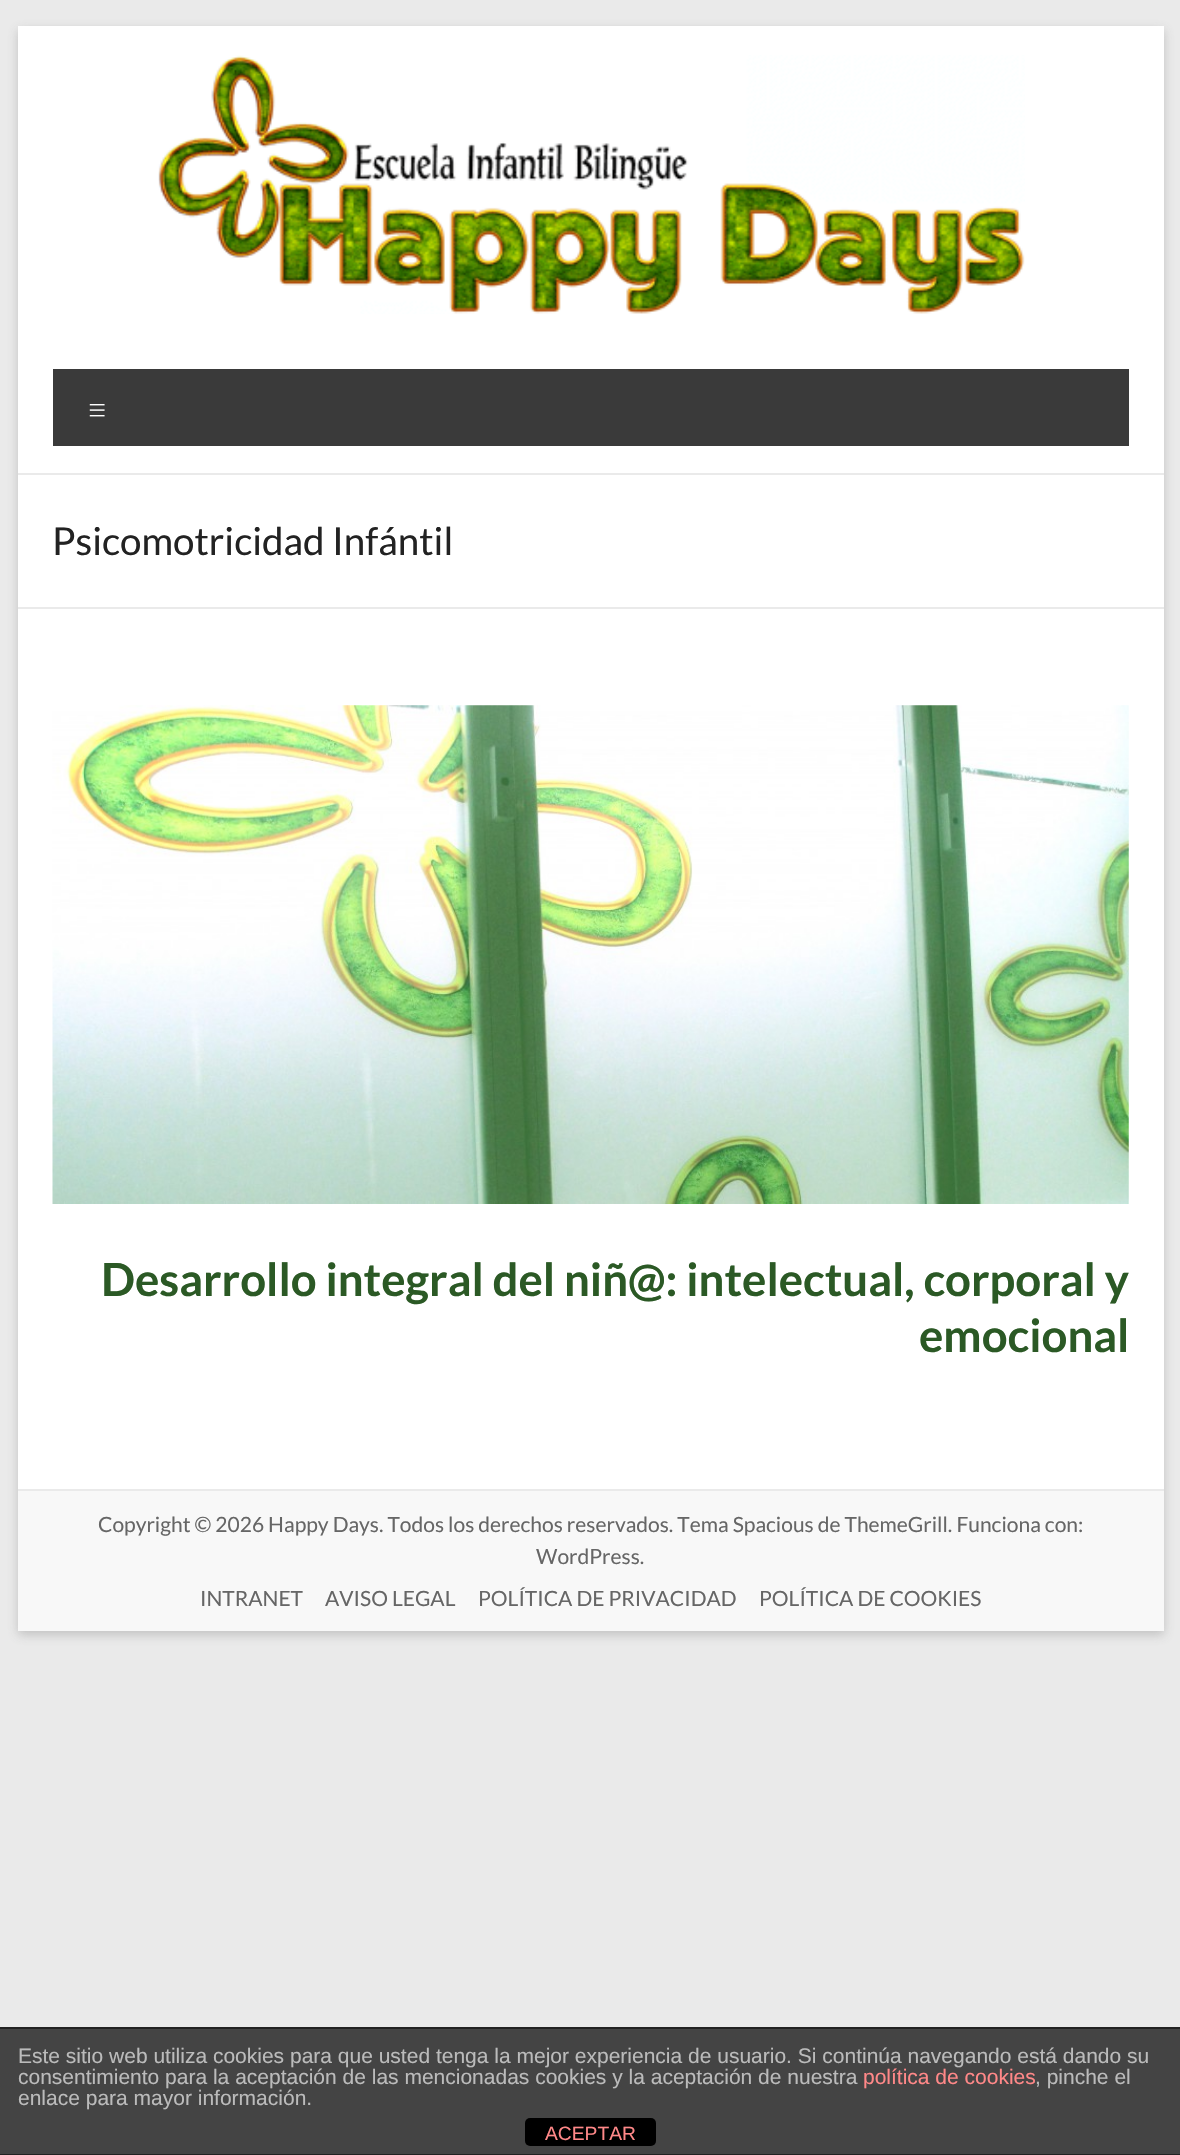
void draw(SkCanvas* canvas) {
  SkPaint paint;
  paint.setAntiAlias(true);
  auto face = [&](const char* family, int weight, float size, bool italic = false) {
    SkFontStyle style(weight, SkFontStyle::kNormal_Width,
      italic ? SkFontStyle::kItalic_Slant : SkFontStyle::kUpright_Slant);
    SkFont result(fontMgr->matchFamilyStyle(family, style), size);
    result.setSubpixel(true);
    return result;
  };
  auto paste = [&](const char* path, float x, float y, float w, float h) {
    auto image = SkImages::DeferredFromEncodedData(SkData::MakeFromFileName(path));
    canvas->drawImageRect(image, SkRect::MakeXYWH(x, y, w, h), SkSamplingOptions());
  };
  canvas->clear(0xffeaeaea);
  paint.setColor(0x4d646464);
  paint.setMaskFilter(SkMaskFilter::MakeBlur(kNormal_SkBlurStyle, 5));
  canvas->drawRect(SkRect::MakeXYWH(18, 30, 1146, 1605), paint);
  paint.setMaskFilter(nullptr);
  paint.setColor(0xffffffff);
  canvas->drawRect(SkRect::MakeXYWH(18, 26, 1146, 1463), paint);
  paint.setColor(0xffeaeaea);
  canvas->drawRect(SkRect::MakeXYWH(18, 473, 1146, 2), paint);
  paste("img/1.png", 158, 55, 867, 259);
  paint.setColor(0xff3a3a3a);
  canvas->drawRect(SkRect::MakeXYWH(53, 369, 1076, 77), paint);
  paint.setColor(0xffeaeaea);
  canvas->drawRect(SkRect::MakeXYWH(18, 607, 1146, 2), paint);
  paste("img/2.png", 52, 705, 1077, 499);
  {
    const struct { float x, y, w, h; SkColor color; } items[] = {
      {18, 1491, 1146, 140, 0xfff8f8f8},
      {18, 1489, 1146, 2, 0xffeaeaea},
      {0, 2029, 1180, 125, 0xff444444},
      {0, 2027, 1180, 2, 0xff222222},
      {0, 2154, 1180, 1, 0xff222222},
    };
    for (auto [x, y, w, h, color] : items) {
      paint.setColor(color);
      canvas->drawRect(SkRect::MakeXYWH(x, y, w, h), paint);
    }
  }
  paint.setColor(0xff000000);
  canvas->drawRoundRect(SkRect::MakeXYWH(525, 2118, 131, 28), 5, 5, paint);
  auto f0 = face("Lato", 300, 35);
  paint.setColor(0xffffffff);
  canvas->drawString("≡", 87, 422, f0, paint);
  auto f1 = face("Lato", 400, 38.5f);
  paint.setColor(0xff222222);
  canvas->drawString("Psicomotricidad Infántil", 52, 555, f1, paint);
  auto f2 = face("Lato", 700, 45.5f);
  paint.setColor(0xff2b5925);
  canvas->drawString("Desarrollo integral del niñ@: intelectual, corporal y", 101, 1296, f2, paint);
  canvas->drawString("emocional", 919, 1352, f2, paint);
  auto f3 = face("Lato", 400, 21);
  paint.setColor(0xff666666);
  {
    const struct { const char* s; float x, y; } items[] = {
      {"Copyright © 2026 Happy Days. Todos los derechos reservados. Tema Spacious de ThemeGrill. Funciona con:", 98, 1532},
      {"WordPress.", 536, 1564},
      {"INTRANET", 200, 1606},
      {"AVISO LEGAL", 325, 1606},
      {"POLÍTICA DE PRIVACIDAD", 478, 1606},
      {"POLÍTICA DE COOKIES", 759, 1606},
    };
    for (auto [s, x, y] : items) {
      canvas->drawString(s, x, y, f3, paint);
    }
  }
  auto f4 = face("Liberation Sans", 400, 21);
  paint.setColor(0xffbbbbbb);
  canvas->drawString("Este sitio web utiliza cookies para que usted tenga la mejor experiencia de usuario. Si continúa navegando está dando su", 18, 2063, f4, paint);
  canvas->drawString("consentimiento para la aceptación de las mencionadas cookies y la aceptación de nuestra", 18, 2084, f4, paint);
  paint.setColor(0xffff8888);
  canvas->drawString("política de cookies", 863, 2084, f4, paint);
  paint.setColor(0xffbbbbbb);
  canvas->drawString(", pinche el", 1035, 2084, f4, paint);
  canvas->drawString("enlace para mayor información.", 18, 2105, f4, paint);
  auto f5 = face("Liberation Sans", 400, 19.25f);
  paint.setColor(0xffff8888);
  canvas->drawString("ACEPTAR", 545, 2140, f5, paint);
}
